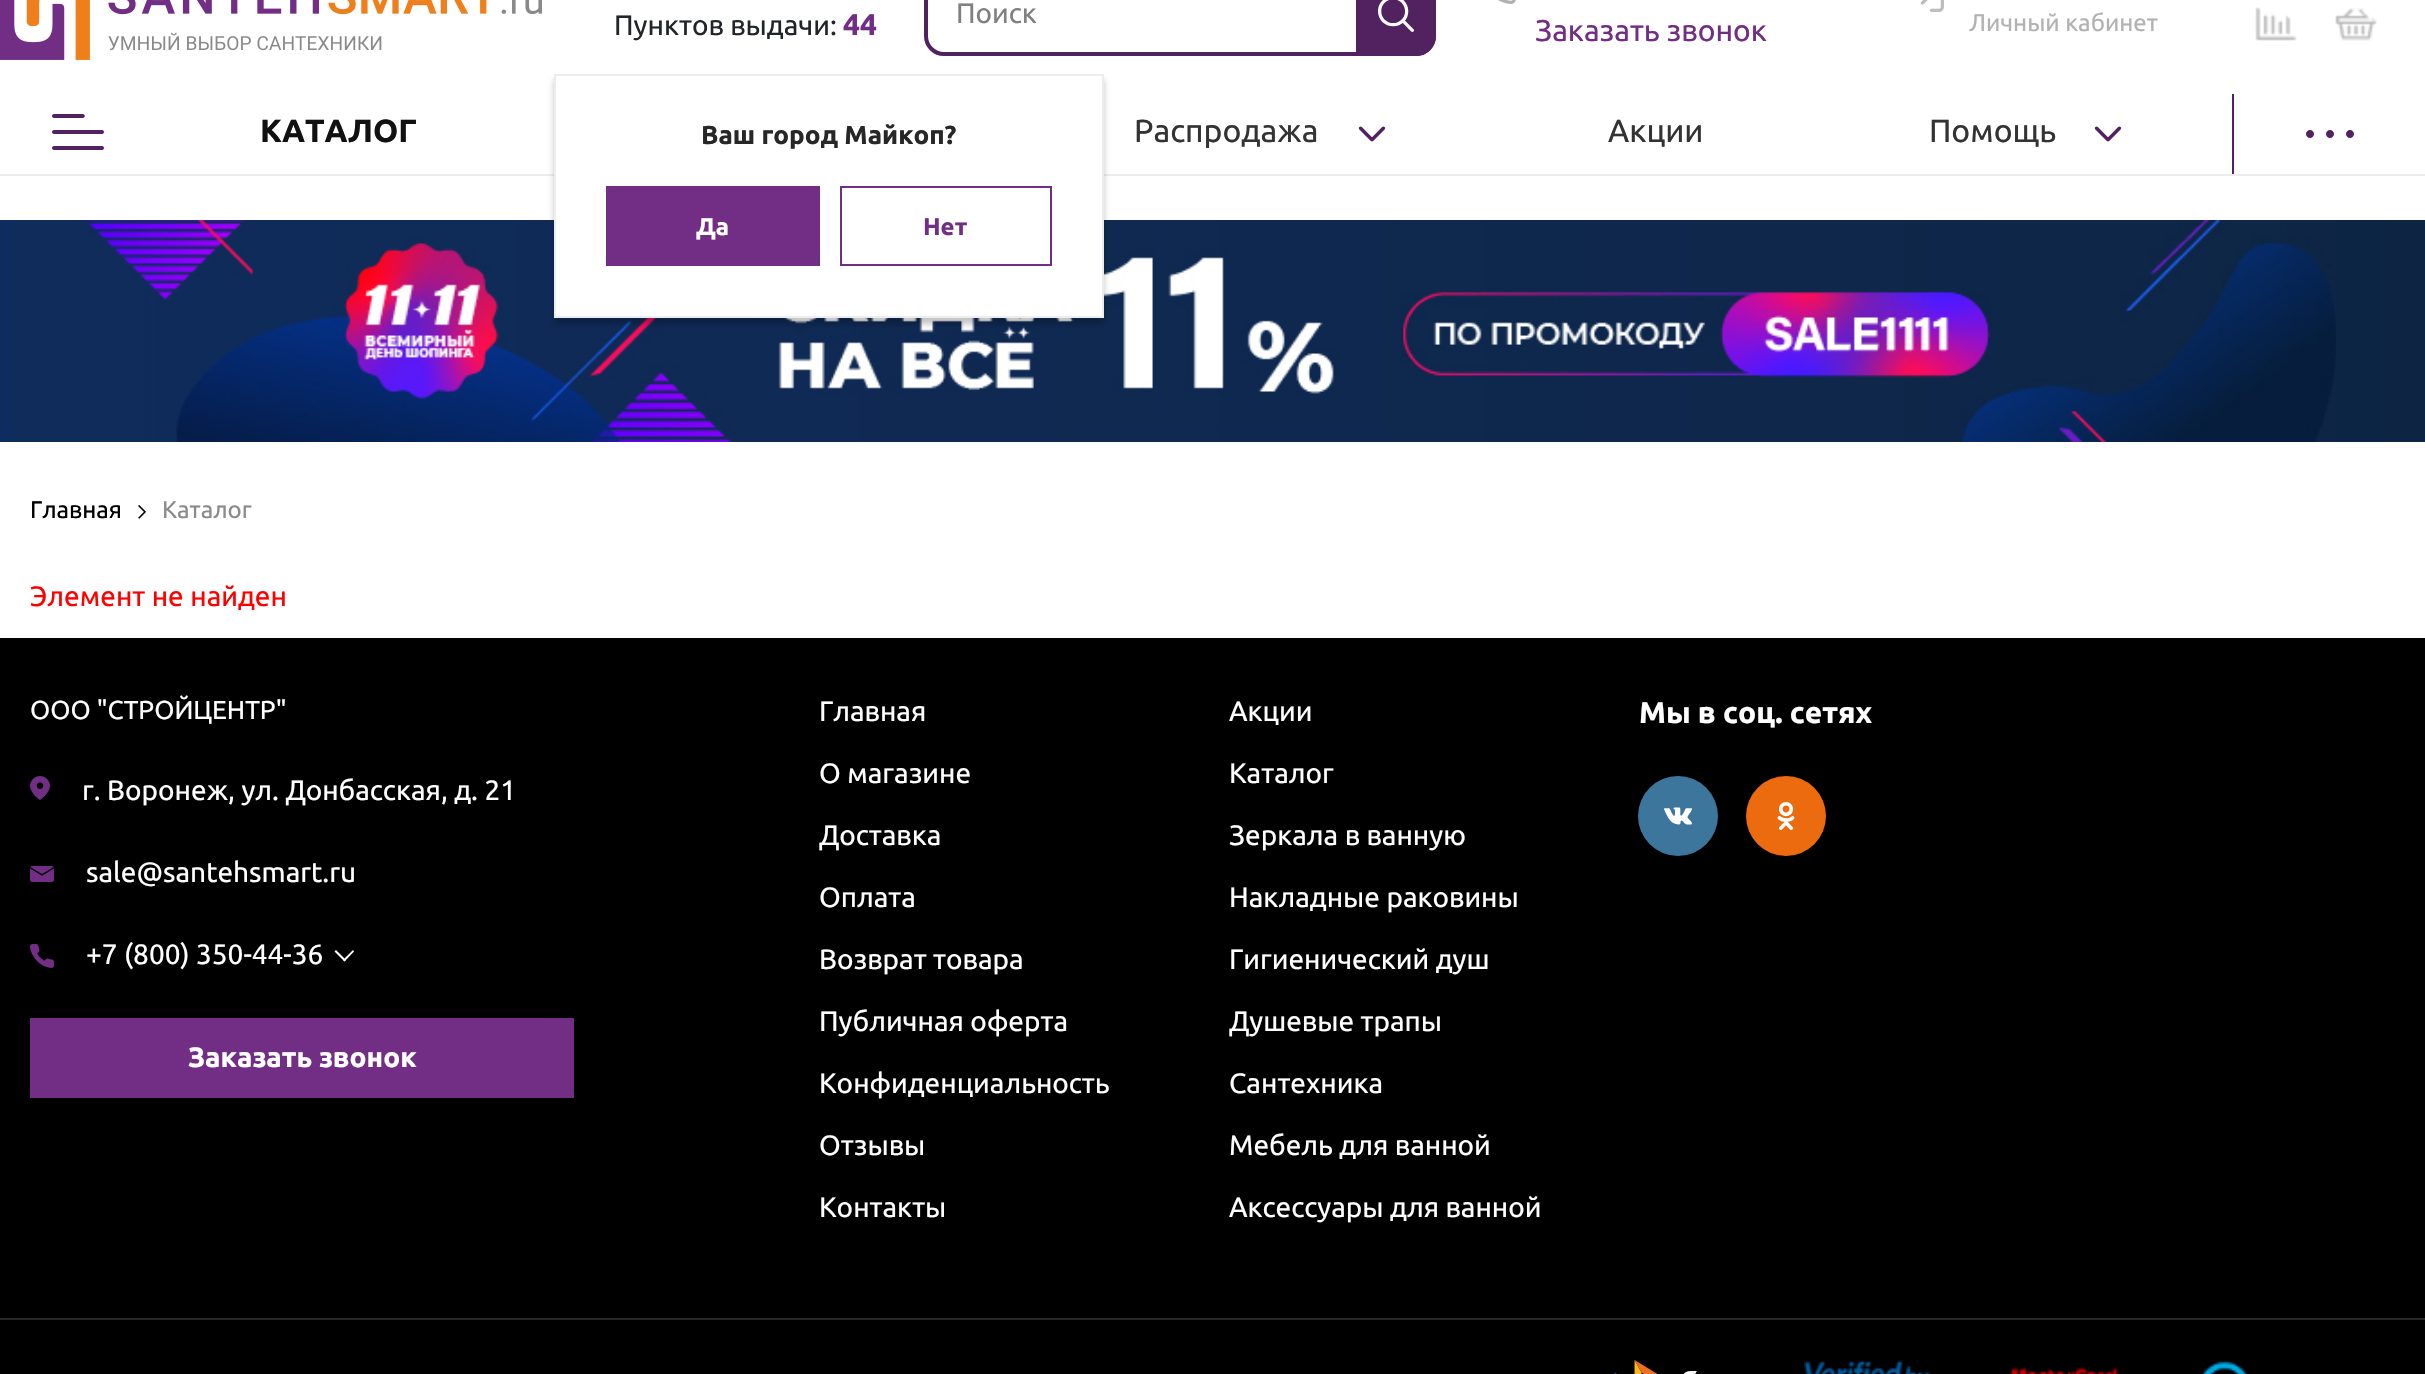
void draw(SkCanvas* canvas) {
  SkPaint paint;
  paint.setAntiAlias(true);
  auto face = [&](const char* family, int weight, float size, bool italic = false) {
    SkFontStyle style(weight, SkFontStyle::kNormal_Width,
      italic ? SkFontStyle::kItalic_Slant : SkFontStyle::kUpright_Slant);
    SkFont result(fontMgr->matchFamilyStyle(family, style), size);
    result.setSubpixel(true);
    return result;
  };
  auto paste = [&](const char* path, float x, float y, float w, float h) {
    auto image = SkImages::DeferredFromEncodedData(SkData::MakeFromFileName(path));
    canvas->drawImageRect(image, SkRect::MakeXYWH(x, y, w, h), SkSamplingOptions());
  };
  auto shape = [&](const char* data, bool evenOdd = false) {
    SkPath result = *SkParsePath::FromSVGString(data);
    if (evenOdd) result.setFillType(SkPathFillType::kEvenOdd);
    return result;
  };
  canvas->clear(0xffffffff);
  paste("img/1.png", 0, 0, 542, 60);
  paint.setColor(0xffededed);
  canvas->drawRect(SkRect::MakeXYWH(0, 174, 2425, 2), paint);
  {
    const SkColor colors[] = {0xff0f2c60, 0xff0d2543};
    const float stops[] = {0, 1};
    const SkPoint ends[] = {{0, 331}, {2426, 331}};
    paint.setShader(SkGradientShader::MakeLinear(ends, colors, stops, 2, SkTileMode::kClamp));
    paint.setAlpha(255);
  }
  canvas->drawRect(SkRect::MakeXYWH(0, 220, 2425, 222), paint);
  paste("img/9.png", 12, 220, 2324, 222);
  paint.setShader(nullptr);
  paint.setColor(0x3b000000);
  paint.setMaskFilter(SkMaskFilter::MakeBlur(kNormal_SkBlurStyle, 3));
  canvas->drawRect(SkRect::MakeXYWH(554, 80, 550, 244), paint);
  paint.setMaskFilter(nullptr);
  paint.setColor(0xffffffff);
  canvas->drawRect(SkRect::MakeXYWH(555, 75, 548, 242), paint);
  paint.setStroke(true);
  paint.setStrokeWidth(2);
  paint.setColor(0xffededed);
  canvas->drawRect(SkRect::MakeXYWH(555, 75, 548, 242), paint);
  paint.setStroke(false);
  paint.setColor(0xff722e85);
  canvas->drawRect(SkRect::MakeXYWH(606, 186, 214, 80), paint);
  paint.setStroke(true);
  canvas->drawRect(SkRect::MakeXYWH(841, 187, 210, 78), paint);
  paint.setStrokeWidth(4);
  paint.setColor(0xff52215f);
  canvas->drawRoundRect(SkRect::MakeXYWH(926, -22, 508, 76), 18, 18, paint);
  paint.setStroke(false);
  canvas->drawPath(shape("M1356-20H1416C1427-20 1436-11 1436 0V36C1436 47 1427 56 1416 56H1356Z"), paint);
  paste("img/2.png", 1378, 0, 36, 32);
  paste("img/3.png", 1498, 0, 18, 4);
  paste("img/4.png", 1920, 0, 24, 12);
  paste("img/5.png", 2255, 7, 122, 34);
  paste("img/6.png", 52, 114, 52, 36);
  paste("img/7.png", 1358, 126, 28, 16);
  paste("img/7.png", 2094, 126, 28, 16);
  canvas->drawRect(SkRect::MakeXYWH(2232, 94, 2, 80), paint);
  paste("img/8.png", 2306, 130, 48, 8);
  paste("img/10.png", 138, 505, 8, 14);
  paint.setColor(0xff000000);
  canvas->drawRect(SkRect::MakeXYWH(0, 638, 2425, 736), paint);
  paste("img/11.png", 30, 776, 20, 24);
  paste("img/12.png", 30, 866, 24, 16);
  paste("img/13.png", 30, 944, 24, 24);
  paint.setColor(0xffffffff);
  canvas->drawPath(shape("M353 950L354 951.5L344.5 961.5L343 960Z"), paint);
  canvas->drawPath(shape("M336 950L346 960L344.5 961.5L334.5 951.5Z"), paint);
  paint.setColor(0xff722e85);
  canvas->drawRect(SkRect::MakeXYWH(30, 1018, 544, 80), paint);
  paint.setColor(0xff3d769c);
  canvas->drawCircle(1678, 816, 40, paint);
  paste("img/14.png", 1664, 807, 28, 18);
  paint.setColor(0xffeb6b0e);
  canvas->drawCircle(1786, 816, 40, paint);
  paste("img/15.png", 1777, 802, 18, 28);
  paint.setColor(0xff272727);
  canvas->drawRect(SkRect::MakeXYWH(0, 1318, 2425, 2), paint);
  paste("img/16.png", 1614, 1360, 83, 14);
  paste("img/17.png", 1804, 1360, 126, 14);
  paste("img/18.png", 2009, 1367, 110, 7);
  paste("img/19.png", 2201, 1360, 46, 14);
  auto f0 = face("Ubuntu", 400, 28);
  paint.setColor(0xff212529);
  canvas->drawString("Пунктов выдачи:", 614, 35, f0, paint);
  auto f1 = face("Ubuntu", 700, 30);
  paint.setColor(0xff722e85);
  canvas->drawString("44", 843, 35, f1, paint);
  auto f2 = face("Ubuntu", 700, 26);
  paint.setColor(0xff272727);
  canvas->drawString("Ваш город Майкоп?", 701, 144, f2, paint);
  auto f3 = face("Ubuntu", 700, 24);
  paint.setColor(0xffffffff);
  canvas->drawString("Да", 696, 235, f3, paint);
  paint.setColor(0xff722e85);
  canvas->drawString("Нет", 923, 235, f3, paint);
  paint.setColor(0xff808080);
  canvas->drawString("Поиск", 956, 23, f0, paint);
  auto f4 = face("Ubuntu", 400, 30);
  paint.setColor(0xff722e85);
  canvas->drawString("Заказать звонок", 1535, 41, f4, paint);
  auto f5 = face("Ubuntu", 400, 24);
  paint.setColor(0xffb2b2b2);
  canvas->drawString("Личный кабинет", 1969, 31, f5, paint);
  auto f6 = face("Ubuntu", 700, 32);
  paint.setColor(0xff111111);
  canvas->drawString("КАТАЛОГ", 260, 142, f6, paint);
  auto f7 = face("Ubuntu", 400, 32);
  paint.setColor(0xff333333);
  {
    const struct { const char* s; float x, y; } items[] = {
      {"Распродажа", 1134, 142},
      {"Акции", 1608, 142},
      {"Помощь", 1929, 142},
    };
    for (auto [s, x, y] : items) {
      canvas->drawString(s, x, y, f7, paint);
    }
  }
  paint.setColor(0xff000000);
  canvas->drawString("Главная", 30, 518, f5, paint);
  paint.setColor(0xff8b8b8b);
  canvas->drawString("Каталог", 162, 518, f5, paint);
  paint.setColor(0xffff0000);
  canvas->drawString("Элемент не найден", 30, 606, f0, paint);
  auto f8 = face("Ubuntu", 400, 26);
  paint.setColor(0xffffffff);
  canvas->drawString("ООО \"СТРОЙЦЕНТР\"", 30, 719, f8, paint);
  {
    const struct { const char* s; float x, y; } items[] = {
      {"г. Воронеж, ул. Донбасская, д. 21", 82, 800},
      {"sale@santehsmart.ru", 86, 882},
      {"+7 (800) 350-44-36", 86, 964},
    };
    for (auto [s, x, y] : items) {
      canvas->drawString(s, x, y, f0, paint);
    }
  }
  auto f9 = face("Ubuntu", 700, 28);
  canvas->drawString("Заказать звонок", 188, 1067, f9, paint);
  {
    const struct { const char* s; float x, y; } items[] = {
      {"Главная", 819, 721},
      {"О магазине", 819, 783},
      {"Доставка", 819, 845},
      {"Оплата", 819, 907},
      {"Возврат товара", 819, 969},
      {"Публичная оферта", 819, 1031},
      {"Конфиденциальность", 819, 1093},
      {"Отзывы", 819, 1155},
      {"Контакты", 819, 1217},
      {"Акции", 1229, 721},
      {"Каталог", 1229, 783},
      {"Зеркала в ванную", 1229, 845},
      {"Накладные раковины", 1229, 907},
      {"Гигиенический душ", 1229, 969},
      {"Душевые трапы", 1229, 1031},
      {"Сантехника", 1229, 1093},
      {"Мебель для ванной", 1229, 1155},
      {"Аксессуары для ванной", 1229, 1217},
    };
    for (auto [s, x, y] : items) {
      canvas->drawString(s, x, y, f0, paint);
    }
  }
  canvas->drawString("Мы в соц. сетях", 1639, 723, f1, paint);
}
